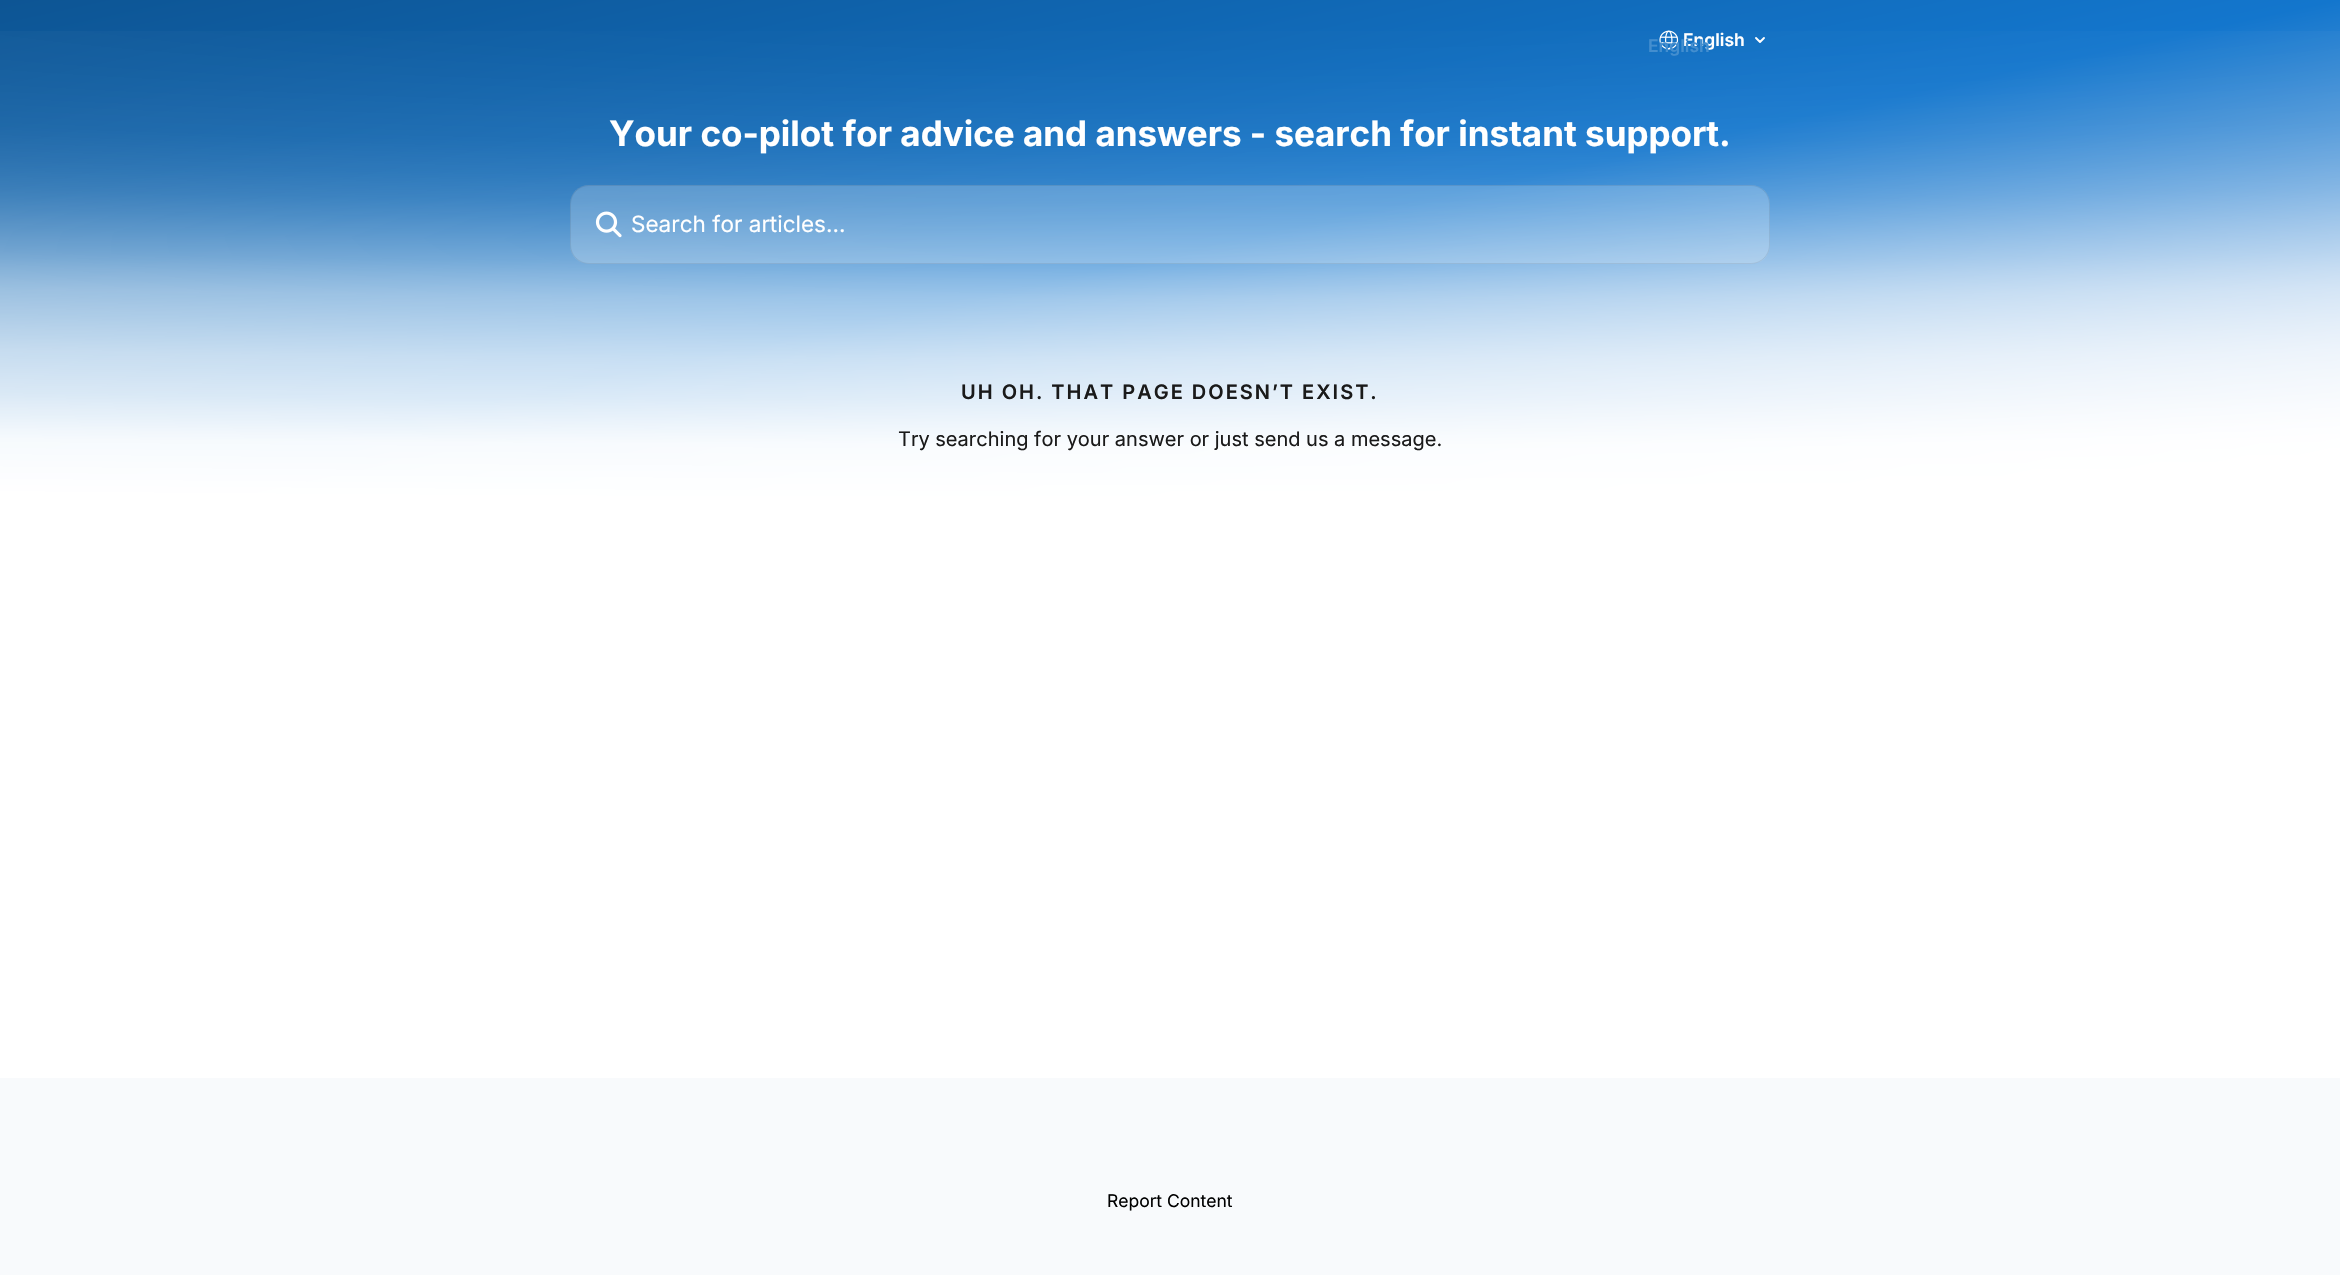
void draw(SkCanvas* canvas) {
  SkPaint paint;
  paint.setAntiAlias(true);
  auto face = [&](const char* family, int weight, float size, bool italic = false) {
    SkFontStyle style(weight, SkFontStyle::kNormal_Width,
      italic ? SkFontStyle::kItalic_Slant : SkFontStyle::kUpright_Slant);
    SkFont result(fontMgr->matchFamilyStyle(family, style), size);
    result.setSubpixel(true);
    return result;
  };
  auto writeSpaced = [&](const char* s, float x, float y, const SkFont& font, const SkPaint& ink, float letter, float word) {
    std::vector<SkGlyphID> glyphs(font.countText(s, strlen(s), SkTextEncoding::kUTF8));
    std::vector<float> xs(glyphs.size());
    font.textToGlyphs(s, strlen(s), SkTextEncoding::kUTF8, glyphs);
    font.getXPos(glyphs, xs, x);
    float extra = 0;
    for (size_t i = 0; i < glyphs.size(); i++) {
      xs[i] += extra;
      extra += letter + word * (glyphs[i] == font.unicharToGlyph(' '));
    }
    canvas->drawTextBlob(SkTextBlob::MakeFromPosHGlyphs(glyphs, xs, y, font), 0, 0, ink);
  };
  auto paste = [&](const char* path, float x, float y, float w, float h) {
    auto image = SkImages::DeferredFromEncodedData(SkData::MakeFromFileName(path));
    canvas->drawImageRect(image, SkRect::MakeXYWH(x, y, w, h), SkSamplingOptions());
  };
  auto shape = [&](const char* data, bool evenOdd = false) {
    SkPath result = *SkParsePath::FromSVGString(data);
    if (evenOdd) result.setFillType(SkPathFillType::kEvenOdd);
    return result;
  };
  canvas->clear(0xffffffff);
  {
    const SkColor colors[] = {0xff0d5594, 0xff1376cd, 0xfffcf8fc};
    const float stops[] = {0, 0.5f, 1};
    const SkPoint ends[] = {{1065, -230}, {1275, 737}};
    paint.setShader(SkGradientShader::MakeLinear(ends, colors, stops, 3, SkTileMode::kClamp));
    paint.setAlpha(255);
  }
  canvas->drawRect(SkRect::MakeXYWH(0, 0, 2340, 496), paint);
  {
    const SkColor colors[] = {0x00ffffff, 0x03ffffff, 0x0affffff, 0x12ffffff, 0x1fffffff, 0x2effffff, 0x40ffffff, 0x54ffffff, 0x69ffffff, 0x7dffffff, 0x94ffffff, 0xabffffff, 0xc2ffffff, 0xd6ffffff, 0xf5ffffff, 0xffffffff};
    const float stops[] = {0, 0.12f, 0.21f, 0.29f, 0.35f, 0.4f, 0.44f, 0.48f, 0.52f, 0.55f, 0.59f, 0.65f, 0.71f, 0.79f, 0.88f, 1};
    SkMatrix m = SkMatrix::Translate(1170, 0).preScale(7801, 506);
    paint.setShader(SkGradientShader::MakeRadial({0, 0}, 1, colors, stops, 16, SkTileMode::kClamp, 0, &m));
    paint.setAlpha(255);
  }
  canvas->drawRect(SkRect::MakeXYWH(0, 31, 2340, 465), paint);
  paste("img/1.png", 1659, 30, 20, 20);
  paint.setStroke(true);
  paint.setStrokeWidth(1.9f);
  paint.setStrokeCap(SkPaint::kRound_Cap);
  paint.setStrokeJoin(SkPaint::kRound_Join);
  paint.setShader(nullptr);
  paint.setColor(0xffffffff);
  canvas->drawPath(shape("M1756 38L1760 42L1764 38"), paint);
  paint.setStroke(false);
  paint.setColor(0x33ffffff);
  canvas->drawRoundRect(SkRect::MakeXYWH(570, 185, 1200, 79), 19, 19, paint);
  paint.setStroke(true);
  paint.setStrokeWidth(1);
  paint.setStrokeCap(SkPaint::kButt_Cap);
  paint.setStrokeJoin(SkPaint::kMiter_Join);
  paint.setColor(0x14000000);
  canvas->drawRoundRect(SkRect::MakeXYWH(570.5f, 185.5f, 1199, 78), 18.5f, 18.5f, paint);
  paste("img/2.png", 595, 211, 27, 27);
  paint.setStroke(false);
  paint.setColor(0xfff8fafc);
  canvas->drawRect(SkRect::MakeXYWH(0, 1078, 2340, 197), paint);
  auto f0 = face("Inter", 600, 17.5f);
  paint.setColor(0xffffffff);
  canvas->drawString("English", 1683, 46, f0, paint);
  paint.setColor(0xff438ecf);
  canvas->drawString("English", 1648, 52, f0, paint);
  auto f1 = face("Inter", 700, 35);
  paint.setColor(0xffffffff);
  canvas->drawString("Your co-pilot for advice and answers - search for instant support.", 609, 146, f1, paint);
  auto f2 = face("Inter", 400, 22.5f);
  canvas->drawString("Search for articles...", 631, 232, f2, paint);
  auto f3 = face("Inter", 600, 20);
  paint.setColor(0xff1a1a1a);
  writeSpaced("UH OH. THAT PAGE DOESN’T EXIST.", 961, 399, f3, paint, 2, 0);
  auto f4 = face("Inter", 400, 20);
  canvas->drawString("Try searching for your answer or just send us a message.", 898, 446, f4, paint);
  auto f5 = face("Inter", 400, 17.5f);
  paint.setColor(0xff000000);
  canvas->drawString("Report Content", 1107, 1207, f5, paint);
}
